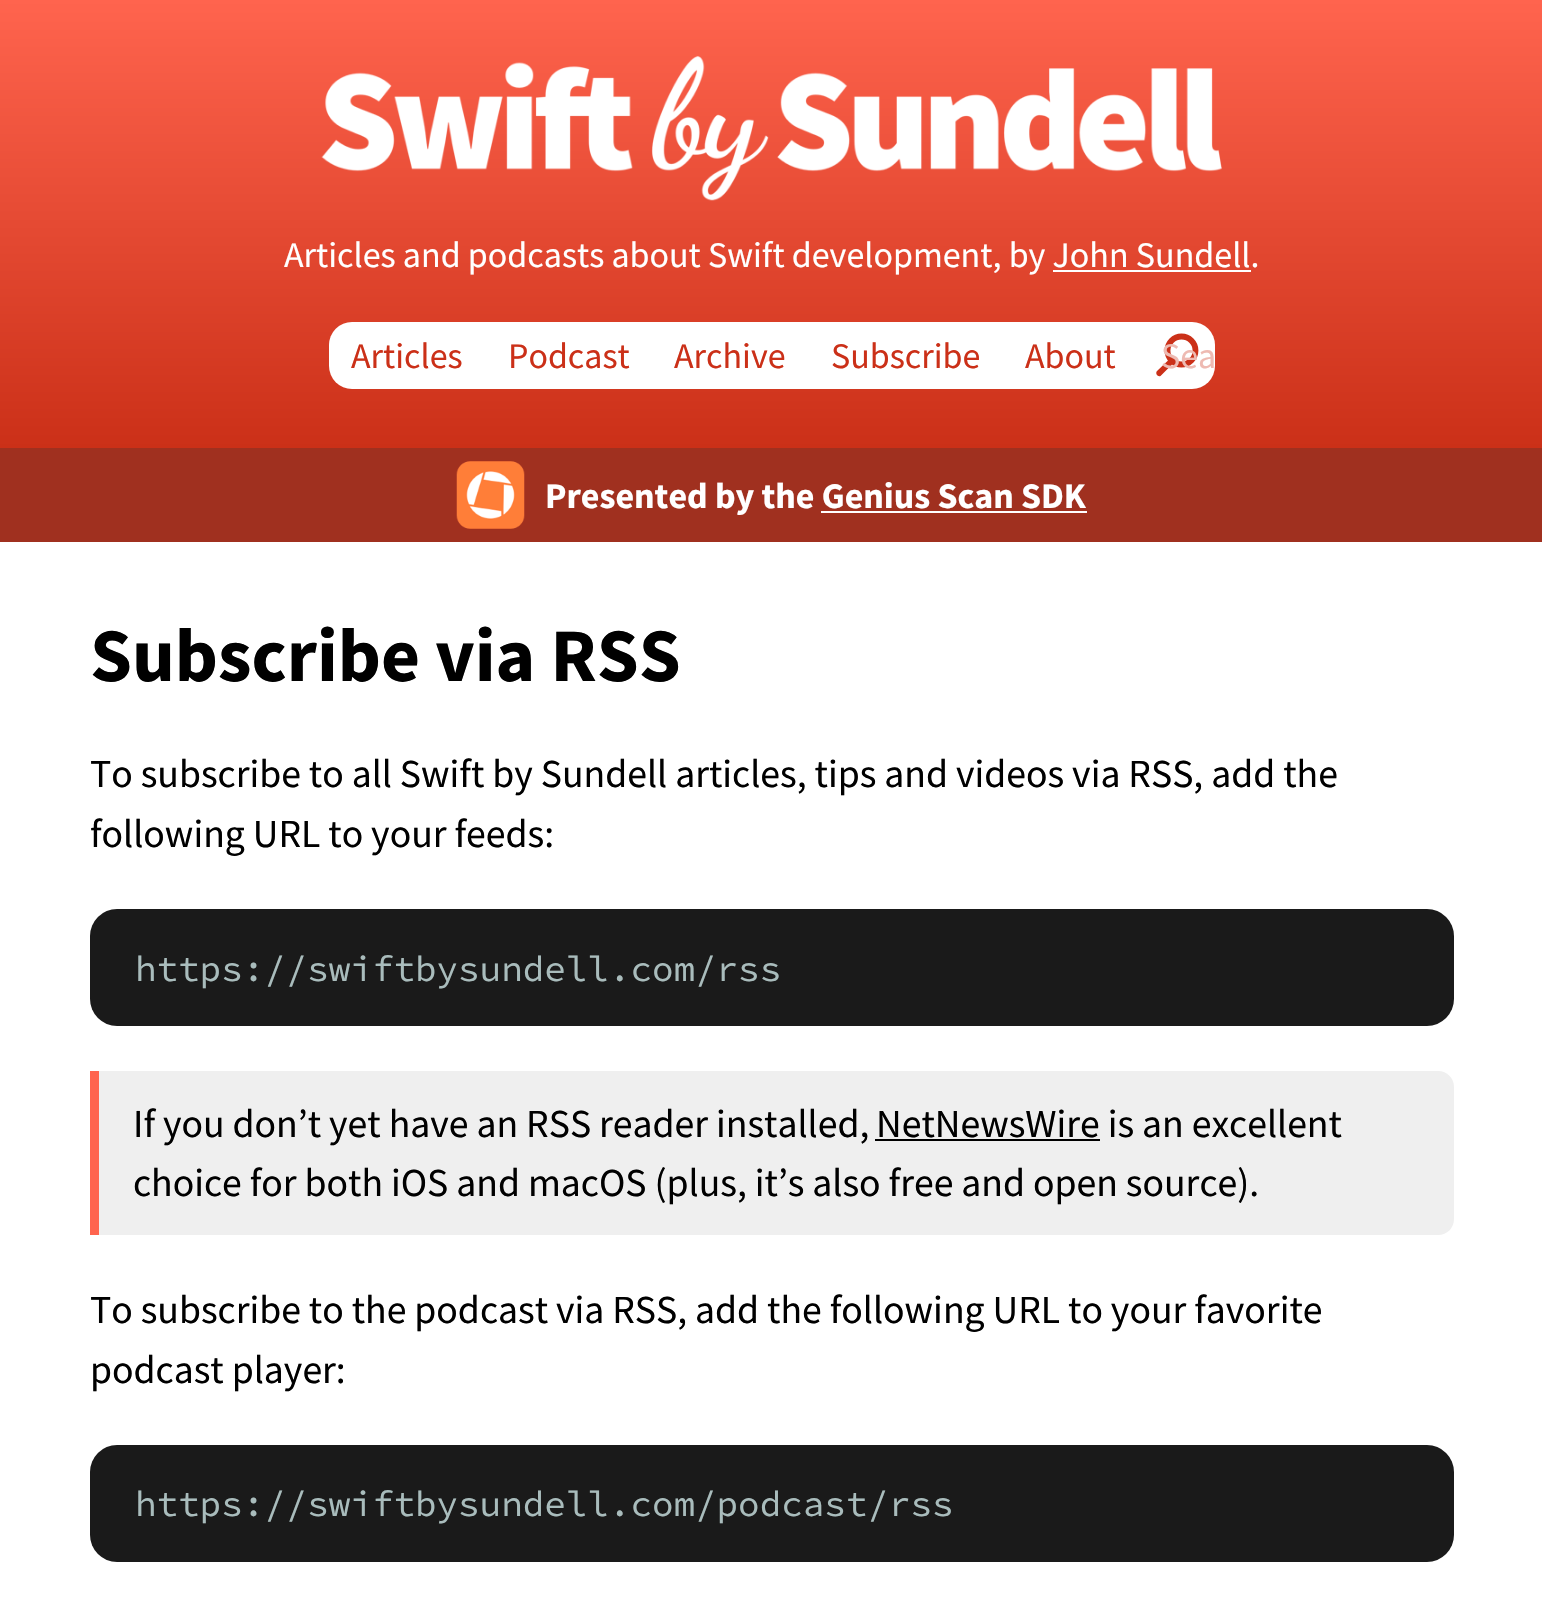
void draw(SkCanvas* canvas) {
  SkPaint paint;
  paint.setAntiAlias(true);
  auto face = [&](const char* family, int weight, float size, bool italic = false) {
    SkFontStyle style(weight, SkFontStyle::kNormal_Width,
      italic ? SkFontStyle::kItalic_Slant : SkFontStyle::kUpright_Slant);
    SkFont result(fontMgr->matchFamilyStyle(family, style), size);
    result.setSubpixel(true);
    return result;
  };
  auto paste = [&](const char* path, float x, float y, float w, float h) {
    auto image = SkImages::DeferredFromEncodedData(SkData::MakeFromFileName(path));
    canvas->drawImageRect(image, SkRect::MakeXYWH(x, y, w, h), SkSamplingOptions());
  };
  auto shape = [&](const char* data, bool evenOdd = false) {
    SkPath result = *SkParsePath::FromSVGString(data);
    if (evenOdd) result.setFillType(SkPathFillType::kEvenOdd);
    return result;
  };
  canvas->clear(0xffffffff);
  {
    const SkColor colors[] = {0xffff644e, 0xffcb3018};
    const float stops[] = {0, 1};
    const SkPoint ends[] = {{772, 0}, {772, 448}};
    paint.setShader(SkGradientShader::MakeLinear(ends, colors, stops, 2, SkTileMode::kClamp));
    paint.setAlpha(255);
  }
  canvas->drawRect(SkRect::MakeXYWH(0, 0, 1542, 448), paint);
  paste("img/1.png", 321, 56, 901, 145);
  paint.setShader(nullptr);
  paint.setColor(0xffffffff);
  canvas->drawRect(SkRect::MakeXYWH(1053, 270, 198, 2), paint);
  canvas->drawRoundRect(SkRect::MakeXYWH(329, 322, 886, 67), 23, 23, paint);
  paint.setColor(0xffcb3018);
  canvas->drawPath(shape("M1157 371L1167.5 361C1169 359.5 1170.5 357 1173 358.5C1177 361 1171 365.5 1169.5 367L1160.5 376C1157.5 377 1155 373.5 1157 371Z", true), paint);
  paint.setStroke(true);
  paint.setStrokeWidth(5.8f);
  canvas->drawCircle(1181.5f, 350.5f, 14, paint);
  paint.setStroke(false);
  paint.setColor(0xffa0301f);
  canvas->drawRect(SkRect::MakeXYWH(0, 448, 1542, 94), paint);
  paste("img/2.png", 456, 461, 69, 68);
  paint.setColor(0xffffffff);
  canvas->drawRect(SkRect::MakeXYWH(821, 511, 266, 2), paint);
  paint.setColor(0xff1a1a1a);
  canvas->drawRoundRect(SkRect::MakeXYWH(90, 909, 1364, 117), 27, 27, paint);
  paint.setColor(0xffefefef);
  canvas->drawPath(shape("M90 1071H1438C1447 1071 1454 1078 1454 1087V1219C1454 1228 1447 1235 1438 1235H90Z"), paint);
  paint.setColor(0xffff644e);
  canvas->drawRect(SkRect::MakeXYWH(90, 1071, 9, 164), paint);
  paint.setColor(0xff000000);
  canvas->drawRect(SkRect::MakeXYWH(875, 1139, 225, 2), paint);
  paint.setColor(0xff1a1a1a);
  canvas->drawRoundRect(SkRect::MakeXYWH(90, 1445, 1364, 117), 27, 27, paint);
  auto f0 = face("Source Sans Pro", 400, 36);
  paint.setColor(0xffffffff);
  canvas->drawString("Articles and podcasts about Swift development, by John Sundell.", 284, 267, f0, paint);
  paint.setColor(0xffcb3018);
  {
    const struct { const char* s; float x, y; } items[] = {
      {"Articles", 351, 368},
      {"Podcast", 508, 368},
      {"Archive", 674, 368},
      {"Subscribe", 831, 368},
      {"About", 1025, 368},
    };
    for (auto [s, x, y] : items) {
      canvas->drawString(s, x, y, f0, paint);
    }
  }
  paint.setColor(0xffeebab2);
  canvas->drawString("Sea", 1161, 368, f0, paint);
  auto f1 = face("Source Sans Pro", 700, 36);
  paint.setColor(0xffffffff);
  canvas->drawString("Presented by the Genius Scan SDK", 545, 508, f1, paint);
  auto f2 = face("Source Sans Pro", 700, 75.5f);
  paint.setColor(0xff000000);
  canvas->drawString("Subscribe via RSS", 90, 681, f2, paint);
  auto f3 = face("Source Sans Pro", 400, 39.7f);
  canvas->drawString("To subscribe to all Swift by Sundell articles, tips and videos via RSS, add the", 90, 787, f3, paint);
  canvas->drawString("following URL to your feeds:", 90, 847, f3, paint);
  auto f4 = face("Source Code Pro", 400, 35.9f);
  paint.setColor(0xffa9bcbc);
  canvas->drawString("https://swiftbysundell.com/rss", 135, 981, f4, paint);
  paint.setColor(0xff000000);
  {
    const struct { const char* s; float x, y; } items[] = {
      {"If you don’t yet have an RSS reader installed,", 133, 1137},
      {"NetNewsWire is an excellent", 876, 1137},
      {"choice for both iOS and macOS (plus, it’s also free and open source).", 133, 1196},
      {"To subscribe to the podcast via RSS, add the following URL to your favorite", 90, 1323},
      {"podcast player:", 90, 1383},
    };
    for (auto [s, x, y] : items) {
      canvas->drawString(s, x, y, f3, paint);
    }
  }
  paint.setColor(0xffa9bcbc);
  canvas->drawString("https://swiftbysundell.com/podcast/rss", 135, 1516, f4, paint);
}
